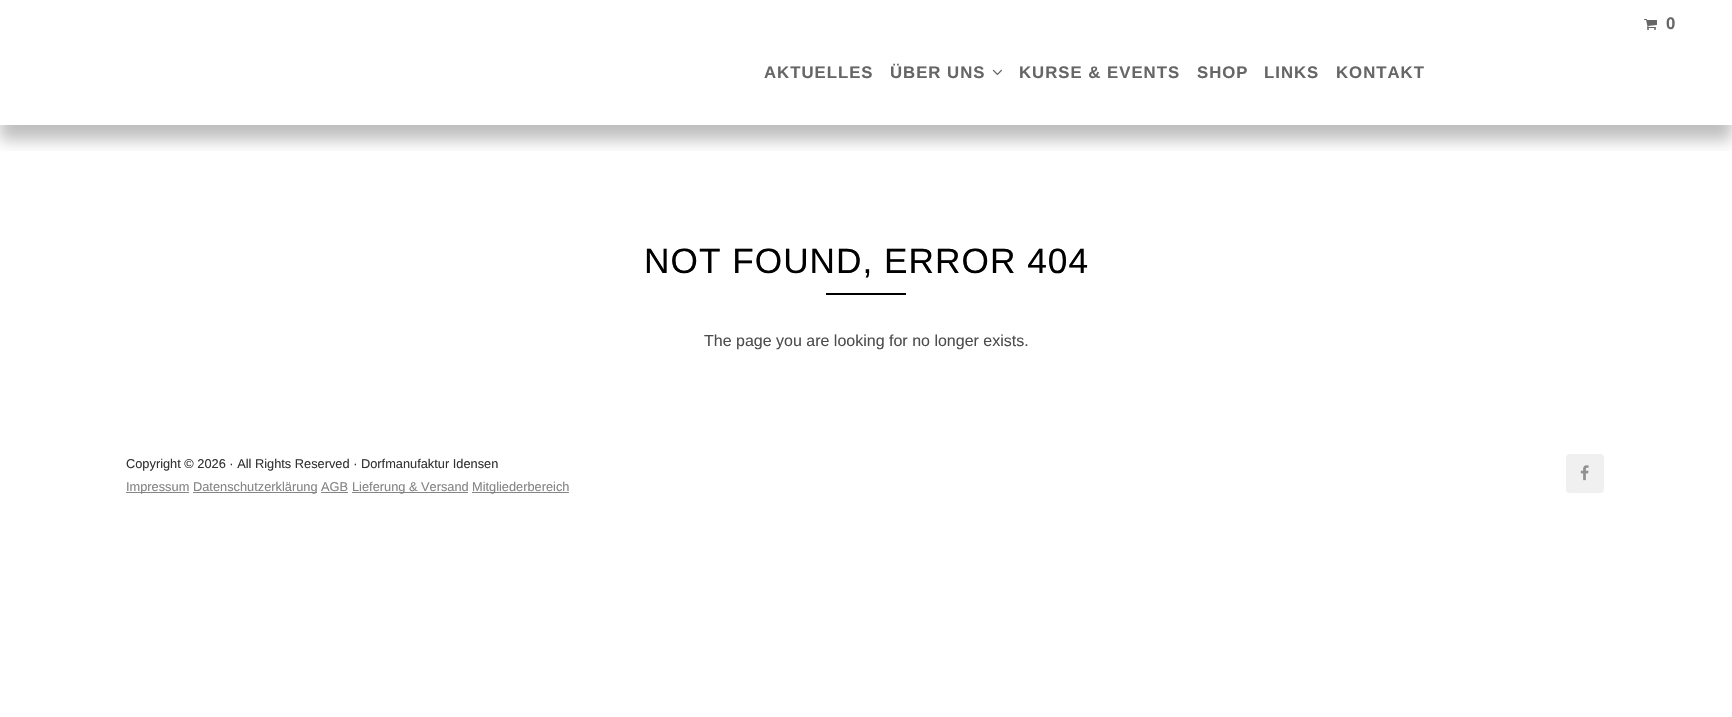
void draw(SkCanvas* canvas) {
  SkPaint paint;
  paint.setAntiAlias(true);
  auto face = [&](const char* family, int weight, float size, bool italic = false) {
    SkFontStyle style(weight, SkFontStyle::kNormal_Width,
      italic ? SkFontStyle::kItalic_Slant : SkFontStyle::kUpright_Slant);
    SkFont result(fontMgr->matchFamilyStyle(family, style), size);
    result.setSubpixel(true);
    return result;
  };
  auto writeSpaced = [&](const char* s, float x, float y, const SkFont& font, const SkPaint& ink, float letter, float word) {
    std::vector<SkGlyphID> glyphs(font.countText(s, strlen(s), SkTextEncoding::kUTF8));
    std::vector<float> xs(glyphs.size());
    font.textToGlyphs(s, strlen(s), SkTextEncoding::kUTF8, glyphs);
    font.getXPos(glyphs, xs, x);
    float extra = 0;
    for (size_t i = 0; i < glyphs.size(); i++) {
      xs[i] += extra;
      extra += letter + word * (glyphs[i] == font.unicharToGlyph(' '));
    }
    canvas->drawTextBlob(SkTextBlob::MakeFromPosHGlyphs(glyphs, xs, y, font), 0, 0, ink);
  };
  auto paste = [&](const char* path, float x, float y, float w, float h) {
    auto image = SkImages::DeferredFromEncodedData(SkData::MakeFromFileName(path));
    canvas->drawImageRect(image, SkRect::MakeXYWH(x, y, w, h), SkSamplingOptions());
  };
  canvas->clear(0xffffffff);
  canvas->save();
  canvas->clipRect(SkRect::MakeXYWH(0, 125, 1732, 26));
  paint.setColor(0x40000000);
  paint.setMaskFilter(SkMaskFilter::MakeBlur(kNormal_SkBlurStyle, 7.5f));
  canvas->drawRect(SkRect::MakeXYWH(0, 15, 1732, 125), paint);
  paint.setMaskFilter(nullptr);
  canvas->restore();
  paste("img/1.png", 1644, 19, 13, 11);
  paste("img/2.png", 992, 69, 10, 7);
  {
    const struct { float x, y, w, h; SkColor color; } items[] = {
      {826, 293, 80, 2, 0xff000000},
      {126, 492, 63, 1, 0xff858585},
      {193, 492, 124, 1, 0xff858585},
      {321, 492, 27, 1, 0xff858585},
      {352, 492, 116, 1, 0xff858585},
      {472, 492, 97, 1, 0xff858585},
    };
    for (auto [x, y, w, h, color] : items) {
      paint.setColor(color);
      canvas->drawRect(SkRect::MakeXYWH(x, y, w, h), paint);
    }
  }
  paint.setColor(0xfff0f0f0);
  canvas->drawRoundRect(SkRect::MakeXYWH(1566, 454, 38, 39), 4, 4, paint);
  paste("img/3.png", 1580, 465, 9, 16);
  auto f0 = face("Liberation Sans", 700, 16.75f);
  paint.setColor(0xff666666);
  {
    const struct { const char* s; float x, y; } items[] = {
      {"0", 1666, 29},
      {"AKTUELLES", 764, 78},
      {"ÜBER UNS", 890, 78},
      {"KURSE & EVENTS", 1019, 78},
      {"SHOP", 1197, 78},
      {"LINKS", 1264, 78},
      {"KONTAKT", 1336, 78},
    };
    for (auto [s, x, y] : items) {
      writeSpaced(s, x, y, f0, paint, 1, 0);
    }
  }
  auto f1 = face("Liberation Sans", 400, 35.25f);
  paint.setColor(0xff000000);
  writeSpaced("NOT FOUND, ERROR 404", 644, 273, f1, paint, 1, 0);
  auto f2 = face("Liberation Sans", 400, 16);
  paint.setColor(0xff4d4d4d);
  canvas->drawString("The page you are looking for no longer exists.", 704, 346, f2, paint);
  auto f3 = face("Liberation Sans", 400, 12.8f);
  paint.setColor(0xff333333);
  canvas->drawString("Copyright © 2026 · All Rights Reserved · Dorfmanufaktur Idensen", 126, 468, f3, paint);
  paint.setColor(0xff848484);
  {
    const struct { const char* s; float x, y; } items[] = {
      {"Impressum", 126, 491},
      {"Datenschutzerklärung", 193, 491},
      {"AGB", 321, 491},
      {"Lieferung & Versand", 352, 491},
      {"Mitgliederbereich", 472, 491},
    };
    for (auto [s, x, y] : items) {
      canvas->drawString(s, x, y, f3, paint);
    }
  }
}
